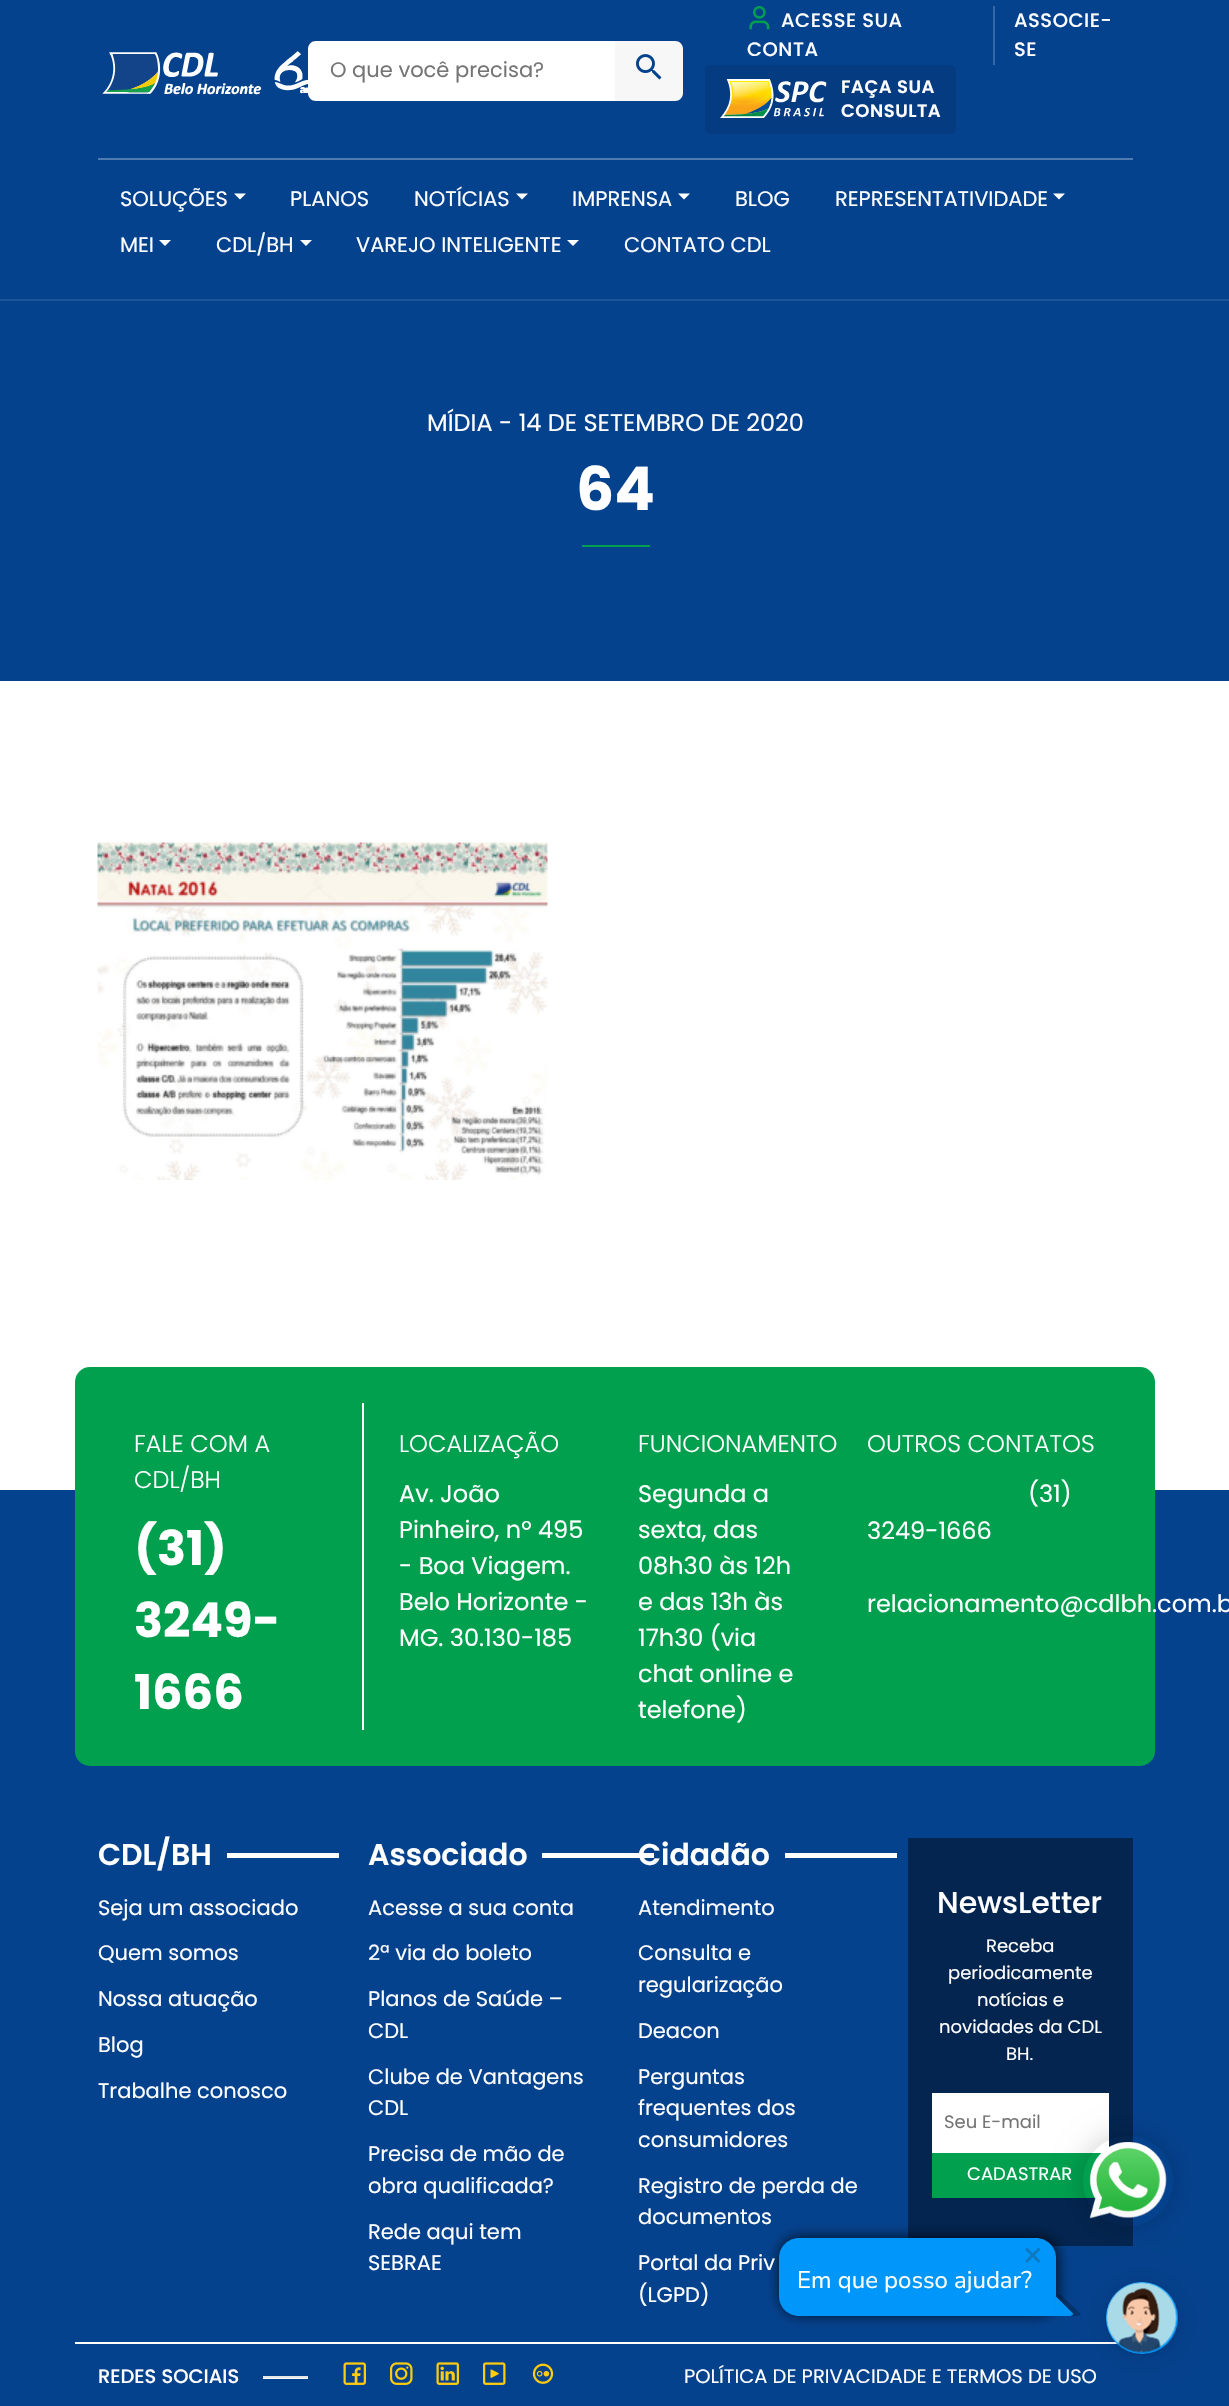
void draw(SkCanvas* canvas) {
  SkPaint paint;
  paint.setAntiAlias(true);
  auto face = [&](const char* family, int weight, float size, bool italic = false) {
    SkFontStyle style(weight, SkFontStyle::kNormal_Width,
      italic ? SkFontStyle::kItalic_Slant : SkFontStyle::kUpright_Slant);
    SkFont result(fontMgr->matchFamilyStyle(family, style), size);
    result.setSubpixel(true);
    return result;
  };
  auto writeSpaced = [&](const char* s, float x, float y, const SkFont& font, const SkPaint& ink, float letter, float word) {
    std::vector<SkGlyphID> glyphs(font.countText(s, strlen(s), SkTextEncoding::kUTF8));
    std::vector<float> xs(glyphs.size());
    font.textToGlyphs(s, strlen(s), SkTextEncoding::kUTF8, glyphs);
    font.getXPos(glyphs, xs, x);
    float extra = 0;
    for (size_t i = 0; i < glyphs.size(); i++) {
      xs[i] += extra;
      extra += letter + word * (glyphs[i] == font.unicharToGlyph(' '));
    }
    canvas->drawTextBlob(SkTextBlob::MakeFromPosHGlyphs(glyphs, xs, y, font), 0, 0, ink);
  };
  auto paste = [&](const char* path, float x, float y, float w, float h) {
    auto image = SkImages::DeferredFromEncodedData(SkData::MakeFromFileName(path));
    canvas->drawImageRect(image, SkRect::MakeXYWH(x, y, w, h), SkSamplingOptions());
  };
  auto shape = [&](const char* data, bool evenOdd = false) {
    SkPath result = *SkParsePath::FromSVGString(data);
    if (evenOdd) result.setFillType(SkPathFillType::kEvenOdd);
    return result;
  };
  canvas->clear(0xffffffff);
  paint.setColor(0xff05428e);
  canvas->drawRect(SkRect::MakeXYWH(0, 0, 1229, 299), paint);
  paint.setColor(0xff1e5599);
  canvas->drawRect(SkRect::MakeXYWH(0, 299, 1229, 2), paint);
  paste("img/1.png", 102, 51, 206, 44);
  paint.setColor(0xffffffff);
  canvas->drawPath(shape("M316 41H615V101H316C311.5 101 308 97.5 308 93V49C308 44.5 311.5 41 316 41Z"), paint);
  paint.setColor(0xfff7f7f7);
  canvas->drawPath(shape("M615 41H675C679.5 41 683 44.5 683 49V93C683 97.5 679.5 101 675 101H615Z"), paint);
  paste("img/2.png", 636, 54, 26, 26);
  paste("img/3.png", 749, 6, 21, 24);
  paint.setColor(0xff3768a5);
  canvas->drawRect(SkRect::MakeXYWH(993, 6, 2, 59), paint);
  paint.setColor(0xff053b80);
  canvas->drawRoundRect(SkRect::MakeXYWH(705, 65, 251, 69), 5, 5, paint);
  paste("img/4.png", 720, 79, 107, 39);
  paint.setColor(0xff507bb0);
  canvas->drawRect(SkRect::MakeXYWH(98, 158, 1035, 2), paint);
  paint.setColor(0xffffffff);
  canvas->drawPath(shape("M234 193.5H246L240 199.5Z"), paint);
  canvas->drawPath(shape("M516 193.5H528L522 199.5Z"), paint);
  canvas->drawPath(shape("M678 193.5H690L684 199.5Z"), paint);
  canvas->drawPath(shape("M1053 193.5H1065L1059 199.5Z"), paint);
  canvas->drawPath(shape("M159 240H171L165 246Z"), paint);
  canvas->drawPath(shape("M300 240H312L306 246Z"), paint);
  canvas->drawPath(shape("M567 240H579L573 246Z"), paint);
  paint.setColor(0xff05428e);
  canvas->drawRect(SkRect::MakeXYWH(0, 301, 1229, 380), paint);
  paint.setColor(0xff00a04e);
  canvas->drawRect(SkRect::MakeXYWH(582, 545, 68, 2), paint);
  paste("img/5.png", 97, 842, 451, 338);
  paint.setColor(0xff05428e);
  canvas->drawRect(SkRect::MakeXYWH(0, 1490, 1229, 916), paint);
  paint.setColor(0xff00a04e);
  canvas->drawRoundRect(SkRect::MakeXYWH(75, 1367, 1080, 399), 15, 15, paint);
  {
    const struct { float x, y, w, h; SkColor color; } items[] = {
      {362, 1403, 2, 327, 0xffffffff},
      {227, 1853, 112, 5, 0xffffffff},
      {542, 1853, 112, 5, 0xffffffff},
      {785, 1853, 112, 5, 0xffffffff},
      {908, 1838, 225, 408, 0xff032550},
      {932, 2093, 177, 60, 0xffffffff},
      {932, 2153, 170, 45, 0xff00a04e},
      {75, 2342, 1043, 2, 0xffffffff},
      {263, 2378, 45, 1, 0xffffffff},
      {263, 2376, 45, 2, 0xffe6e6e6},
    };
    for (auto [x, y, w, h, color] : items) {
      paint.setColor(color);
      canvas->drawRect(SkRect::MakeXYWH(x, y, w, h), paint);
    }
  }
  paste("img/6.png", 343, 2362, 23, 23);
  paste("img/7.png", 390, 2362, 23, 23);
  paste("img/8.png", 436, 2362, 23, 23);
  paste("img/9.png", 483, 2362, 23, 23);
  paste("img/10.png", 532, 2363, 22, 21);
  paint.setColor(0xbf000000);
  paint.setMaskFilter(SkMaskFilter::MakeBlur(kNormal_SkBlurStyle, 7));
  canvas->drawRoundRect(SkRect::MakeXYWH(780, 2237, 278, 78), 20, 20, paint);
  paint.setMaskFilter(nullptr);
  paint.setColor(0xff0096fa);
  canvas->drawPath(shape("M799 2238H1036C1047 2238 1056 2247 1056 2258V2313C1056 2314.5 1054.5 2316 1053 2316H799C788 2316 779 2307 779 2296V2258C779 2247 788 2238 799 2238Z"), paint);
  paint.setColor(0xff0f78be);
  canvas->drawPath(shape("M1038.5 2247.5L1040.5 2249.5L1027 2263L1025 2261Z"), paint);
  canvas->drawPath(shape("M1025 2249.5L1027 2247.5L1040.5 2261L1038.5 2263Z"), paint);
  canvas->save();
  canvas->clipPath(shape("M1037 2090H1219V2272H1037ZM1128 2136C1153 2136 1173 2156 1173 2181C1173 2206 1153 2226 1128 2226C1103 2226 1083 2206 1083 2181C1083 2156 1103 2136 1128 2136Z", true), true);
  paint.setColor(0x33000000);
  paint.setMaskFilter(SkMaskFilter::MakeBlur(kNormal_SkBlurStyle, 15));
  canvas->drawRoundRect(SkRect::MakeXYWH(1083, 2136, 90, 90), 45, 45, paint);
  paint.setMaskFilter(nullptr);
  canvas->restore();
  paste("img/11.png", 1089, 2142, 78, 77);
  paint.setColor(0x40000000);
  canvas->drawPath(shape("M1045 2316H1076C1078 2316 1080 2315 1081 2314L1060 2294L1040 2314C1041 2315 1043 2316 1045 2316Z"), paint);
  paint.setColor(0xff0096fa);
  canvas->drawPath(shape("M1040 2316H1069C1070.5 2316 1072 2315.5 1073.5 2314L1054.5 2295L1035.5 2314C1037 2315 1038.5 2316 1040 2316Z"), paint);
  paint.setColor(0x1a000000);
  paint.setMaskFilter(SkMaskFilter::MakeBlur(kNormal_SkBlurStyle, 24));
  canvas->drawRoundRect(SkRect::MakeXYWH(1106, 2285, 72, 72), 36, 36, paint);
  paint.setMaskFilter(nullptr);
  paint.setMaskFilter(SkMaskFilter::MakeBlur(kNormal_SkBlurStyle, 4.5f));
  canvas->drawRoundRect(SkRect::MakeXYWH(1106, 2283, 72, 72), 36, 36, paint);
  paint.setMaskFilter(nullptr);
  paint.setColor(0xff0096fa);
  canvas->drawCircle(1142, 2318, 36, paint);
  paste("img/12.png", 1106, 2282, 71, 71);
  auto f0 = face("Poppins", 400, 21);
  paint.setColor(0xff757575);
  canvas->drawString("O que você precisa?", 330, 77, f0, paint);
  auto f1 = face("Poppins", 500, 19.5f);
  paint.setColor(0xffffffff);
  {
    const struct { const char* s; float x, y; } items[] = {
      {"ACESSE SUA", 781, 27},
      {"CONTA", 747, 56},
      {"ASSOCIE-", 1014, 27},
      {"SE", 1014, 56},
    };
    for (auto [s, x, y] : items) {
      writeSpaced(s, x, y, f1, paint, 0.5f, 0);
    }
  }
  auto f2 = face("Poppins", 600, 18);
  writeSpaced("FAÇA SUA", 841, 93, f2, paint, 0.5f, 0);
  writeSpaced("CONSULTA", 841, 117, f2, paint, 0.5f, 0);
  {
    const struct { const char* s; float x, y; } items[] = {
      {"SOLUÇÕES", 120, 206},
      {"PLANOS", 290, 206},
      {"NOTÍCIAS", 414, 206},
      {"IMPRENSA", 572, 206},
      {"BLOG", 735, 206},
      {"REPRESENTATIVIDADE", 835, 206},
      {"MEI", 120, 252},
      {"CDL/BH", 216, 252},
      {"VAREJO INTELIGENTE", 356, 252},
      {"CONTATO CDL", 624, 252},
    };
    for (auto [s, x, y] : items) {
      canvas->drawString(s, x, y, f0, paint);
    }
  }
  auto f3 = face("Poppins", 400, 24);
  canvas->drawString("MÍDIA - 14 DE SETEMBRO DE 2020", 427, 431, f3, paint);
  auto f4 = face("Poppins", 700, 60);
  canvas->drawString("64", 576, 510, f4, paint);
  auto f5 = face("Poppins", 300, 24);
  canvas->drawString("FALE COM A", 134, 1452, f5, paint);
  canvas->drawString("CDL/BH", 134, 1488, f5, paint);
  auto f6 = face("Poppins", 700, 48);
  {
    const struct { const char* s; float x, y; } items[] = {
      {"(31)", 134, 1565},
      {"3249-", 134, 1637},
      {"1666", 134, 1709},
    };
    for (auto [s, x, y] : items) {
      canvas->drawString(s, x, y, f6, paint);
    }
  }
  canvas->drawString("LOCALIZAÇÃO", 399, 1452, f5, paint);
  {
    const struct { const char* s; float x, y; } items[] = {
      {"Av. João", 399, 1502},
      {"Pinheiro, nº 495", 399, 1538},
      {"- Boa Viagem.", 399, 1574},
      {"Belo Horizonte -", 399, 1610},
      {"MG. 30.130-185", 399, 1646},
    };
    for (auto [s, x, y] : items) {
      canvas->drawString(s, x, y, f3, paint);
    }
  }
  canvas->drawString("FUNCIONAMENTO", 638, 1452, f5, paint);
  {
    const struct { const char* s; float x, y; } items[] = {
      {"Segunda a", 638, 1502},
      {"sexta, das", 638, 1538},
      {"08h30 às 12h", 638, 1574},
      {"e das 13h às", 638, 1610},
      {"17h30 (via", 638, 1646},
      {"chat online e", 638, 1682},
      {"telefone)", 638, 1718},
    };
    for (auto [s, x, y] : items) {
      canvas->drawString(s, x, y, f3, paint);
    }
  }
  canvas->drawString("OUTROS CONTATOS", 867, 1452, f5, paint);
  {
    const struct { const char* s; float x, y; } items[] = {
      {"(31)", 1028, 1502},
      {"3249-1666", 867, 1539},
      {"relacionamento@cdlbh.com.b", 867, 1612},
    };
    for (auto [s, x, y] : items) {
      canvas->drawString(s, x, y, f3, paint);
    }
  }
  auto f7 = face("Poppins", 600, 30);
  canvas->drawString("CDL/BH", 98, 1865, f7, paint);
  {
    const struct { const char* s; float x, y; } items[] = {
      {"Seja um associado", 98, 1915},
      {"Quem somos", 98, 1960},
      {"Nossa atuação", 98, 2006},
      {"Blog", 98, 2052},
      {"Trabalhe conosco", 98, 2098},
    };
    for (auto [s, x, y] : items) {
      canvas->drawString(s, x, y, f0, paint);
    }
  }
  canvas->drawString("Associado", 368, 1865, f7, paint);
  {
    const struct { const char* s; float x, y; } items[] = {
      {"Acesse a sua conta", 368, 1915},
      {"2ª via do boleto", 368, 1960},
      {"Planos de Saúde –", 368, 2006},
      {"CDL", 368, 2038},
      {"Clube de Vantagens", 368, 2084},
      {"CDL", 368, 2115},
      {"Precisa de mão de", 368, 2161},
      {"obra qualificada?", 368, 2193},
      {"Rede aqui tem", 368, 2239},
      {"SEBRAE", 368, 2270},
    };
    for (auto [s, x, y] : items) {
      canvas->drawString(s, x, y, f0, paint);
    }
  }
  canvas->drawString("Cidadão", 638, 1865, f7, paint);
  {
    const struct { const char* s; float x, y; } items[] = {
      {"Atendimento", 638, 1915},
      {"Consulta e", 638, 1960},
      {"regularização", 638, 1992},
      {"Deacon", 638, 2038},
      {"Perguntas", 638, 2084},
      {"frequentes dos", 638, 2115},
      {"consumidores", 638, 2147},
      {"Registro de perda de", 638, 2193},
      {"documentos", 638, 2224},
      {"Portal da Priv", 638, 2270},
      {"(LGPD)", 638, 2302},
    };
    for (auto [s, x, y] : items) {
      canvas->drawString(s, x, y, f0, paint);
    }
  }
  auto f8 = face("Poppins", 500, 30);
  canvas->drawString("NewsLetter", 937, 1913, f8, paint);
  auto f9 = face("Poppins", 400, 18);
  {
    const struct { const char* s; float x, y; } items[] = {
      {"Receba", 986, 1952},
      {"periodicamente", 948, 1979},
      {"notícias e", 977, 2006},
      {"novidades da CDL", 939, 2033},
      {"BH.", 1006, 2060},
    };
    for (auto [s, x, y] : items) {
      canvas->drawString(s, x, y, f9, paint);
    }
  }
  paint.setColor(0xff757575);
  canvas->drawString("Seu E-mail", 944, 2128, f9, paint);
  paint.setColor(0xffffffff);
  canvas->drawString("CADASTRAR", 967, 2180, f9, paint);
  canvas->drawString("REDES SOCIAIS", 98, 2383, f1, paint);
  auto f10 = face("Poppins", 400, 19.5f);
  canvas->drawString("POLÍTICA DE PRIVACIDADE E TERMOS DE USO", 684, 2383, f10, paint);
  auto f11 = face("Nunito Sans", 400, 24);
  canvas->drawString("Em que posso ajudar?", 797, 2288, f11, paint);
}
